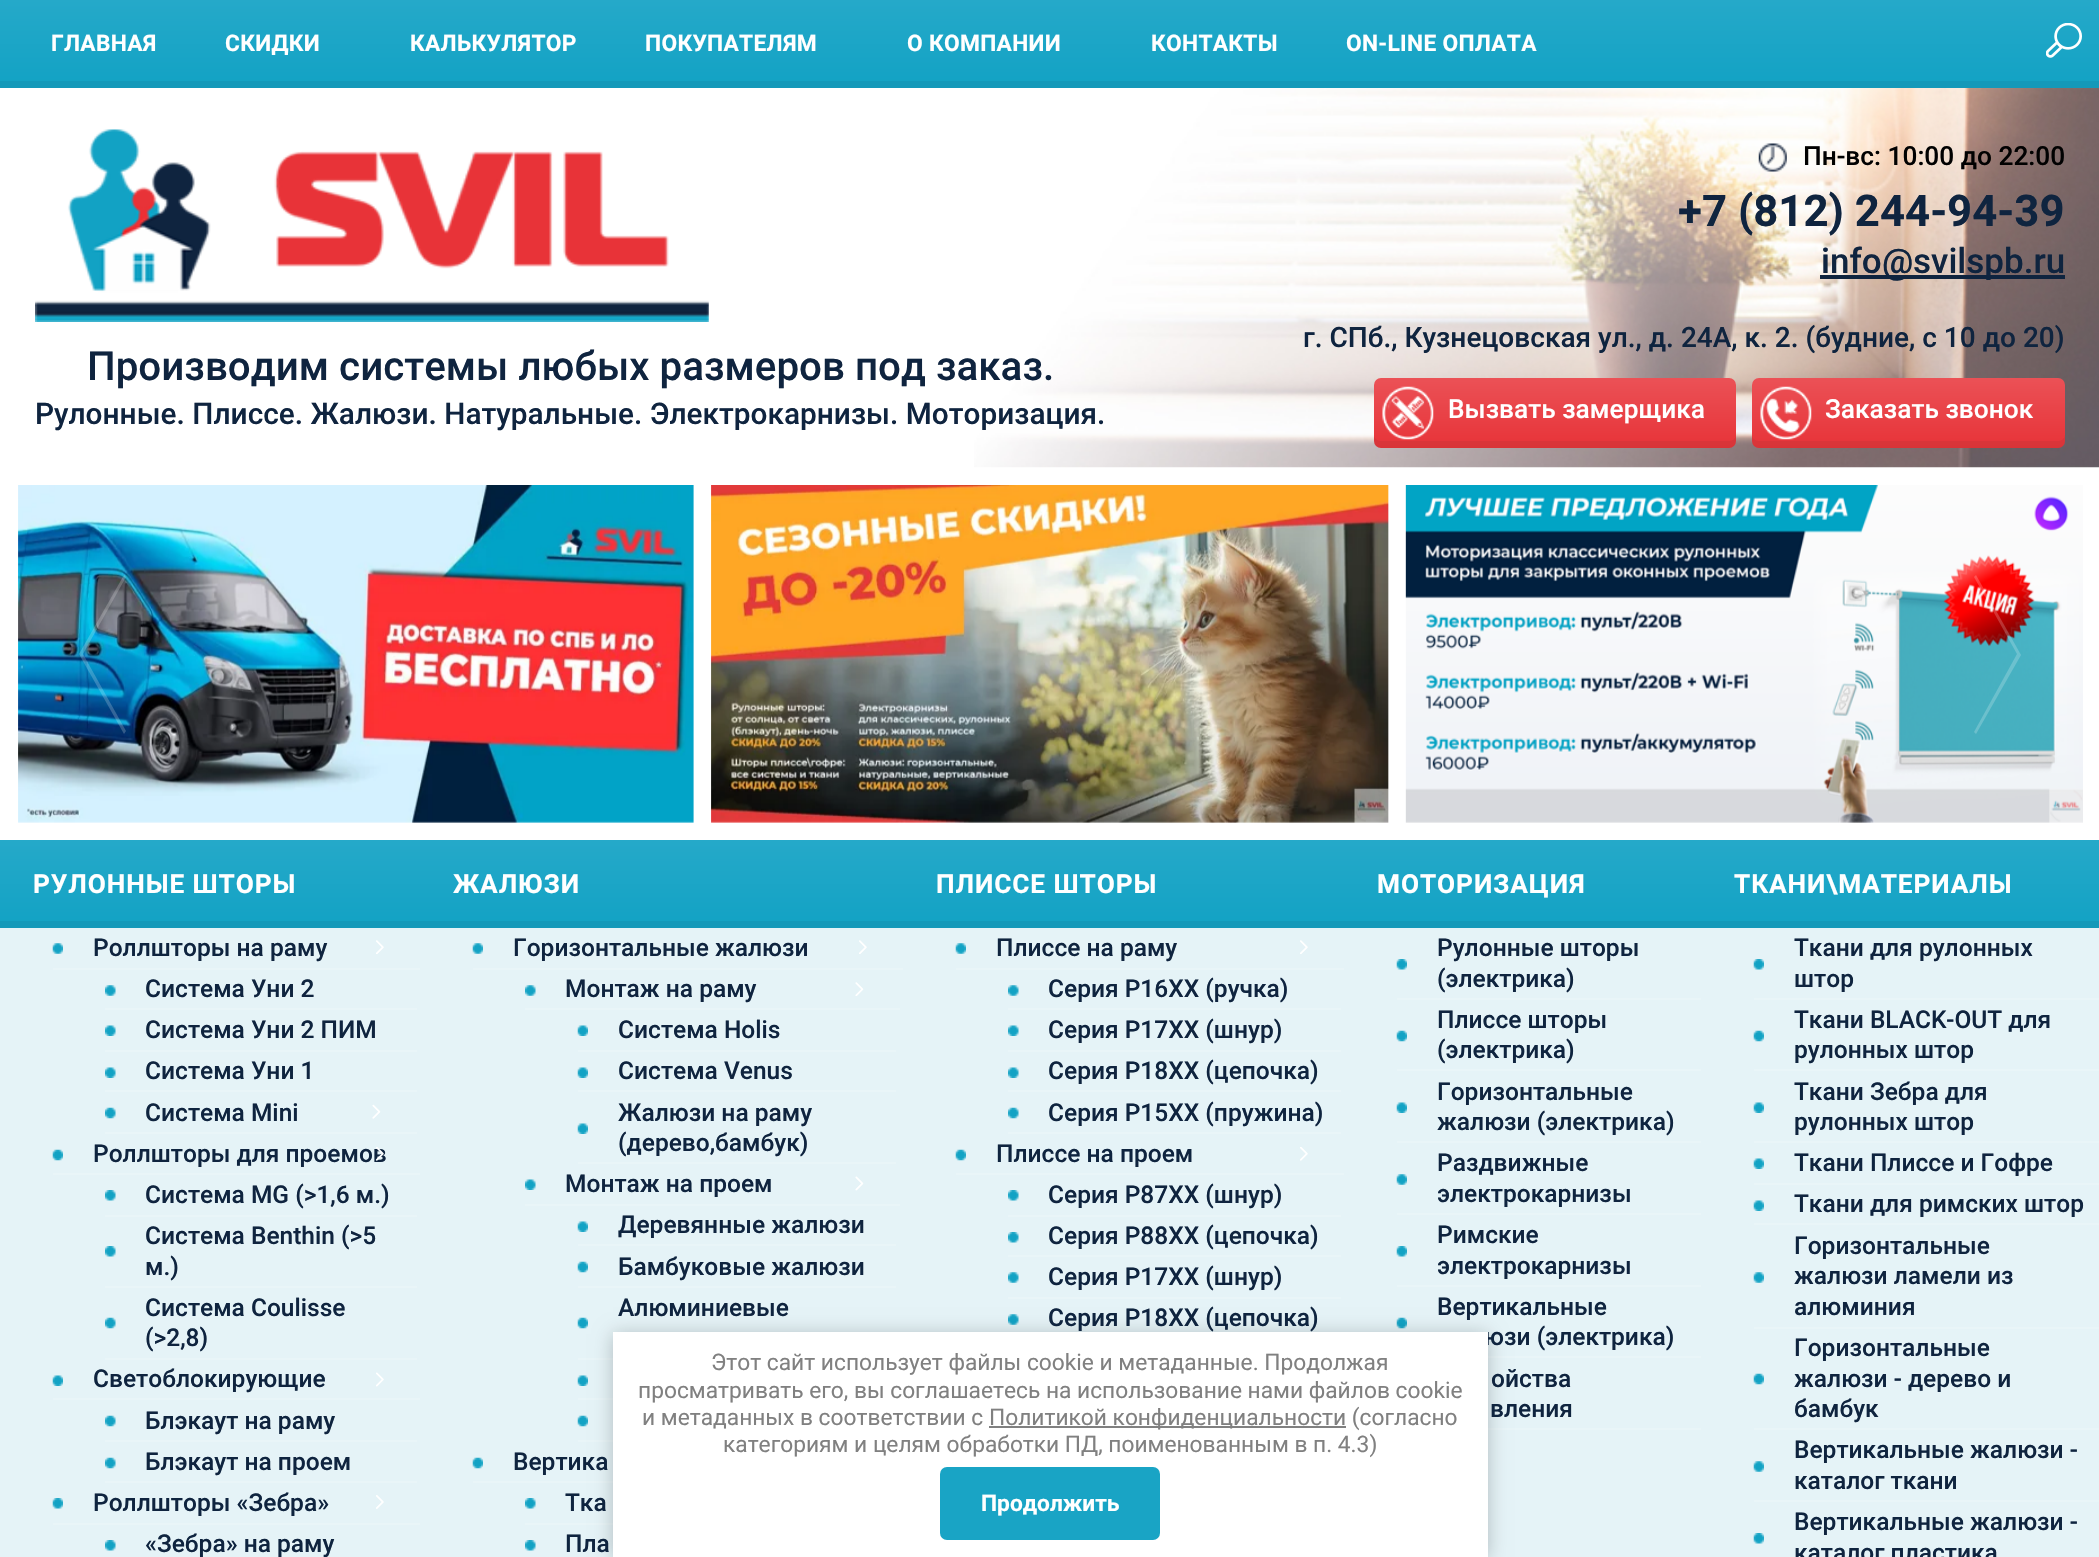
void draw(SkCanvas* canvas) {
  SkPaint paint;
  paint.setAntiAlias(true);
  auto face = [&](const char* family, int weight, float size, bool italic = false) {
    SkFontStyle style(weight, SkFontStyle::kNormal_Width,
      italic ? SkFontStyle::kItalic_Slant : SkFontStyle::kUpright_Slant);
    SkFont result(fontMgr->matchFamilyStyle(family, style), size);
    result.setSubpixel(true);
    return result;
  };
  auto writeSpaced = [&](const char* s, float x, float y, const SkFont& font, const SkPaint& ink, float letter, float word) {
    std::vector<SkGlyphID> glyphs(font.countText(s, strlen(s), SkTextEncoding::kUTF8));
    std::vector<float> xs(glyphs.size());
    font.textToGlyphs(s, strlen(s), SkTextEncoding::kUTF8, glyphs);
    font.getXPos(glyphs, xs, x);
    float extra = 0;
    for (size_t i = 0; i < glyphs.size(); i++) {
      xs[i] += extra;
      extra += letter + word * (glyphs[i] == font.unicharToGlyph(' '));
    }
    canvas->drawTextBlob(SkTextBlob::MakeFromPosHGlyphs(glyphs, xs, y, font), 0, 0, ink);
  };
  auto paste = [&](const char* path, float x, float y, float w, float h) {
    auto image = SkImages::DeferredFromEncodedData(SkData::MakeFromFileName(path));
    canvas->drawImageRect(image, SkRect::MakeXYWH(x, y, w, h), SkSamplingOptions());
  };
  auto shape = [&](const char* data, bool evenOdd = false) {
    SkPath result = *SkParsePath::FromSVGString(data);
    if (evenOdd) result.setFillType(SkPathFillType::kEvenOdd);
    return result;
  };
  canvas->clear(0xffffffff);
  {
    const SkColor colors[] = {0xff25a9c9, 0xff12a2c4};
    const float stops[] = {0, 1};
    const SkPoint ends[] = {{1050, 0}, {1050, 88}};
    paint.setShader(SkGradientShader::MakeLinear(ends, colors, stops, 2, SkTileMode::kClamp));
    paint.setAlpha(255);
  }
  canvas->drawRect(SkRect::MakeXYWH(0, 0, 2099, 81), paint);
  paint.setShader(nullptr);
  paint.setColor(0xff1499b9);
  canvas->drawRect(SkRect::MakeXYWH(0, 81, 2099, 7), paint);
  paste("img/1.png", 2046, 23, 36, 35);
  paste("img/2.png", 974, 88, 1125, 380);
  paste("img/3.png", 35, 129, 674, 193);
  paste("img/4.png", 1758, 143, 29, 29);
  paint.setColor(0xff0f243f);
  canvas->drawRect(SkRect::MakeXYWH(1820, 275, 245, 4), paint);
  {
    const SkColor colors[] = {0xffeb5156, 0xffe73338};
    const float stops[] = {0, 1};
    const SkPoint ends[] = {{1555, 378}, {1555, 448}};
    paint.setShader(SkGradientShader::MakeLinear(ends, colors, stops, 2, SkTileMode::kClamp));
    paint.setAlpha(255);
  }
  canvas->drawRoundRect(SkRect::MakeXYWH(1374, 378, 362, 70), 7, 7, paint);
  paint.setShader(nullptr);
  paint.setColor(0x12252525);
  canvas->drawPath(shape("M1374 434V441C1374 445 1377 448 1381 448H1729C1733 448 1736 445 1736 441V434C1736 438 1733 441 1729 441H1381C1377 441 1374 438 1374 434Z"), paint);
  paste("img/5.png", 1382, 386, 52, 54);
  {
    const SkColor colors[] = {0xffeb5156, 0xffe73338};
    const float stops[] = {0, 1};
    const SkPoint ends[] = {{1908, 378}, {1908, 448}};
    paint.setShader(SkGradientShader::MakeLinear(ends, colors, stops, 2, SkTileMode::kClamp));
    paint.setAlpha(255);
  }
  canvas->drawRoundRect(SkRect::MakeXYWH(1752, 378, 313, 70), 7, 7, paint);
  paint.setShader(nullptr);
  paint.setColor(0x12252525);
  canvas->drawPath(shape("M1752 434V441C1752 445 1755 448 1759 448H2058C2062 448 2065 445 2065 441V434C2065 438 2062 441 2058 441H1759C1755 441 1752 438 1752 434Z"), paint);
  paste("img/6.png", 1760, 386, 52, 54);
  paste("img/7.png", 18, 485, 676, 338);
  paste("img/8.png", 711, 485, 678, 338);
  paste("img/9.png", 1405, 485, 678, 338);
  paint.setColor(0x33ffffff);
  canvas->drawPath(shape("M126 577L124 575L79 654L124 734L126 731L83 654Z"), paint);
  canvas->drawPath(shape("M1974 732L1976 734L2021 655L1976 575L1974 577L2017 654Z"), paint);
  paint.setColor(0xffe5f3f7);
  canvas->drawRect(SkRect::MakeXYWH(0, 928, 2099, 629), paint);
  {
    const SkColor colors[] = {0xff25a9c9, 0xff12a2c4};
    const float stops[] = {0, 1};
    const SkPoint ends[] = {{1050, 840}, {1050, 928}};
    paint.setShader(SkGradientShader::MakeLinear(ends, colors, stops, 2, SkTileMode::kClamp));
    paint.setAlpha(255);
  }
  canvas->drawRect(SkRect::MakeXYWH(0, 840, 2099, 81), paint);
  paint.setShader(nullptr);
  paint.setColor(0xff1499b9);
  canvas->drawRect(SkRect::MakeXYWH(0, 921, 2099, 7), paint);
  paste("img/10.png", 52, 943, 11, 11);
  paste("img/11.png", 376, 940, 8, 14);
  paint.setColor(0xffe9f5f8);
  canvas->drawRect(SkRect::MakeXYWH(53, 968, 367, 2), paint);
  paste("img/12.png", 105, 985, 11, 11);
  canvas->drawRect(SkRect::MakeXYWH(105, 1008, 312, 2), paint);
  paste("img/13.png", 105, 1025, 11, 11);
  canvas->drawRect(SkRect::MakeXYWH(105, 1050, 312, 2), paint);
  paste("img/13.png", 105, 1067, 11, 11);
  canvas->drawRect(SkRect::MakeXYWH(105, 1090, 312, 2), paint);
  paste("img/14.png", 105, 1107, 11, 12);
  paste("img/15.png", 372, 1104, 9, 15);
  canvas->drawRect(SkRect::MakeXYWH(105, 1132, 312, 2), paint);
  paste("img/16.png", 52, 1149, 11, 12);
  canvas->drawRect(SkRect::MakeXYWH(53, 1173, 367, 2), paint);
  paste("img/18.png", 105, 1190, 11, 11);
  canvas->drawRect(SkRect::MakeXYWH(105, 1215, 312, 2), paint);
  paste("img/18.png", 105, 1246, 11, 11);
  canvas->drawRect(SkRect::MakeXYWH(105, 1286, 312, 2), paint);
  paste("img/14.png", 105, 1317, 11, 12);
  canvas->drawRect(SkRect::MakeXYWH(105, 1358, 312, 2), paint);
  paste("img/19.png", 52, 1375, 11, 11);
  paste("img/20.png", 376, 1372, 8, 15);
  canvas->drawRect(SkRect::MakeXYWH(53, 1398, 367, 2), paint);
  paste("img/14.png", 105, 1415, 11, 12);
  canvas->drawRect(SkRect::MakeXYWH(105, 1440, 312, 2), paint);
  paste("img/14.png", 105, 1457, 11, 12);
  canvas->drawRect(SkRect::MakeXYWH(105, 1481, 312, 2), paint);
  paste("img/21.png", 52, 1498, 11, 11);
  paste("img/22.png", 376, 1495, 8, 14);
  canvas->drawRect(SkRect::MakeXYWH(53, 1523, 367, 2), paint);
  paste("img/18.png", 105, 1540, 11, 11);
  paste("img/10.png", 472, 943, 11, 11);
  paste("img/11.png", 859, 940, 8, 14);
  canvas->drawRect(SkRect::MakeXYWH(473, 968, 430, 2), paint);
  paste("img/12.png", 525, 985, 11, 11);
  paste("img/23.png", 855, 982, 9, 14);
  canvas->drawRect(SkRect::MakeXYWH(525, 1008, 375, 2), paint);
  paste("img/24.png", 577, 1025, 11, 11);
  canvas->drawRect(SkRect::MakeXYWH(578, 1050, 318, 2), paint);
  paste("img/24.png", 577, 1067, 11, 11);
  canvas->drawRect(SkRect::MakeXYWH(578, 1090, 318, 2), paint);
  paste("img/24.png", 577, 1123, 11, 11);
  canvas->drawRect(SkRect::MakeXYWH(578, 1162, 318, 2), paint);
  paste("img/13.png", 525, 1179, 11, 11);
  paste("img/25.png", 855, 1176, 9, 15);
  canvas->drawRect(SkRect::MakeXYWH(525, 1204, 375, 2), paint);
  paste("img/24.png", 577, 1221, 11, 11);
  canvas->drawRect(SkRect::MakeXYWH(578, 1244, 318, 2), paint);
  paste("img/26.png", 577, 1261, 11, 12);
  canvas->drawRect(SkRect::MakeXYWH(578, 1286, 318, 2), paint);
  paste("img/26.png", 577, 1317, 11, 12);
  canvas->drawRect(SkRect::MakeXYWH(578, 1358, 35, 2), paint);
  paste("img/24.png", 577, 1375, 11, 11);
  canvas->drawRect(SkRect::MakeXYWH(578, 1398, 35, 2), paint);
  paste("img/26.png", 577, 1415, 11, 12);
  canvas->drawRect(SkRect::MakeXYWH(578, 1440, 35, 2), paint);
  paste("img/16.png", 472, 1457, 11, 12);
  canvas->drawRect(SkRect::MakeXYWH(473, 1481, 140, 2), paint);
  paste("img/18.png", 525, 1498, 11, 11);
  canvas->drawRect(SkRect::MakeXYWH(525, 1523, 88, 2), paint);
  paste("img/18.png", 525, 1540, 11, 11);
  paste("img/10.png", 955, 943, 11, 11);
  paste("img/11.png", 1300, 940, 8, 14);
  canvas->drawRect(SkRect::MakeXYWH(956, 968, 388, 2), paint);
  paste("img/12.png", 1008, 985, 11, 11);
  canvas->drawRect(SkRect::MakeXYWH(1008, 1008, 333, 2), paint);
  paste("img/13.png", 1008, 1025, 11, 11);
  canvas->drawRect(SkRect::MakeXYWH(1008, 1050, 333, 2), paint);
  paste("img/13.png", 1008, 1067, 11, 11);
  canvas->drawRect(SkRect::MakeXYWH(1008, 1090, 333, 2), paint);
  paste("img/14.png", 1008, 1107, 11, 12);
  canvas->drawRect(SkRect::MakeXYWH(1008, 1132, 333, 2), paint);
  paste("img/16.png", 955, 1149, 11, 12);
  paste("img/27.png", 1300, 1147, 8, 14);
  canvas->drawRect(SkRect::MakeXYWH(956, 1173, 388, 2), paint);
  paste("img/18.png", 1008, 1190, 11, 11);
  canvas->drawRect(SkRect::MakeXYWH(1008, 1215, 333, 2), paint);
  paste("img/18.png", 1008, 1232, 11, 11);
  canvas->drawRect(SkRect::MakeXYWH(1008, 1255, 333, 2), paint);
  paste("img/12.png", 1008, 1272, 11, 11);
  canvas->drawRect(SkRect::MakeXYWH(1008, 1297, 333, 2), paint);
  paste("img/12.png", 1008, 1314, 11, 11);
  paste("img/21.png", 1396, 959, 11, 11);
  canvas->drawRect(SkRect::MakeXYWH(1397, 998, 304, 2), paint);
  paste("img/16.png", 1396, 1030, 11, 12);
  canvas->drawRect(SkRect::MakeXYWH(1397, 1069, 304, 2), paint);
  paste("img/19.png", 1396, 1102, 11, 11);
  canvas->drawRect(SkRect::MakeXYWH(1397, 1141, 304, 2), paint);
  paste("img/10.png", 1396, 1174, 11, 11);
  canvas->drawRect(SkRect::MakeXYWH(1397, 1213, 304, 2), paint);
  paste("img/21.png", 1396, 1246, 11, 11);
  canvas->drawRect(SkRect::MakeXYWH(1397, 1285, 304, 2), paint);
  paste("img/16.png", 1396, 1317, 11, 12);
  canvas->drawRect(SkRect::MakeXYWH(1488, 1356, 213, 2), paint);
  canvas->drawRect(SkRect::MakeXYWH(1488, 1428, 213, 2), paint);
  paste("img/21.png", 1753, 959, 11, 11);
  canvas->drawRect(SkRect::MakeXYWH(1754, 998, 345, 2), paint);
  paste("img/16.png", 1753, 1030, 11, 12);
  canvas->drawRect(SkRect::MakeXYWH(1754, 1069, 345, 2), paint);
  paste("img/19.png", 1753, 1102, 11, 11);
  canvas->drawRect(SkRect::MakeXYWH(1754, 1141, 345, 2), paint);
  paste("img/19.png", 1753, 1158, 11, 11);
  canvas->drawRect(SkRect::MakeXYWH(1754, 1183, 345, 2), paint);
  paste("img/19.png", 1753, 1200, 11, 11);
  canvas->drawRect(SkRect::MakeXYWH(1754, 1223, 345, 2), paint);
  paste("img/10.png", 1753, 1272, 11, 11);
  canvas->drawRect(SkRect::MakeXYWH(1754, 1327, 345, 2), paint);
  paste("img/16.png", 1753, 1373, 11, 12);
  canvas->drawRect(SkRect::MakeXYWH(1754, 1428, 345, 2), paint);
  paste("img/10.png", 1753, 1461, 11, 11);
  canvas->drawRect(SkRect::MakeXYWH(1754, 1500, 345, 2), paint);
  paste("img/21.png", 1753, 1533, 11, 11);
  paint.setColor(0x3b000000);
  paint.setMaskFilter(SkMaskFilter::MakeBlur(kNormal_SkBlurStyle, 9));
  canvas->drawRect(SkRect::MakeXYWH(613, 1334, 875, 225), paint);
  paint.setMaskFilter(nullptr);
  auto f0 = face("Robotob", 700, 22.75f);
  paint.setColor(0xffffffff);
  {
    const struct { const char* s; float x, y; } items[] = {
      {"ГЛАВНАЯ", 51, 51},
      {"СКИДКИ", 225, 51},
      {"КАЛЬКУЛЯТОР", 410, 51},
      {"ПОКУПАТЕЛЯМ", 645, 51},
      {"О КОМПАНИИ", 907, 51},
      {"КОНТАКТЫ", 1151, 51},
      {"ON-LINE ОПЛАТА", 1346, 51},
    };
    for (auto [s, x, y] : items) {
      writeSpaced(s, x, y, f0, paint, 0.3f, 0);
    }
  }
  auto f1 = face("Roboto", 500, 40.25f);
  paint.setColor(0xff0f243f);
  canvas->drawString("Производим системы любых размеров под заказ.", 87, 380, f1, paint);
  auto f2 = face("Roboto", 500, 29.75f);
  canvas->drawString("Рулонные. Плиссе. Жалюзи. Натуральные. Электрокарнизы. Моторизация.", 35, 424, f2, paint);
  auto f3 = face("Roboto", 500, 26.25f);
  paint.setColor(0xff010101);
  canvas->drawString("Пн-вс: 10:00 до 22:00", 1803, 165, f3, paint);
  auto f4 = face("Robotob", 700, 43.75f);
  paint.setColor(0xff0f243f);
  canvas->drawString("+7 (812) 244-94-39", 1678, 226, f4, paint);
  auto f5 = face("Roboto", 500, 35);
  canvas->drawString("info@svilspb.ru", 1821, 273, f5, paint);
  auto f6 = face("Roboto", 500, 28);
  canvas->drawString("г. СПб., Кузнецовская ул., д. 24А, к. 2. (будние, с 10 до 20)", 1303, 347, f6, paint);
  paint.setColor(0xffffffff);
  canvas->drawString("Вызвать замерщика", 1448, 418, f3, paint);
  canvas->drawString("Заказать звонок", 1825, 418, f3, paint);
  auto f7 = face("Robotob", 700, 26.25f);
  writeSpaced("РУЛОННЫЕ ШТОРЫ", 33, 893, f7, paint, 0.9f, 0);
  auto f8 = face("Roboto", 500, 24.5f);
  paint.setColor(0xff0f243f);
  {
    const struct { const char* s; float x, y; } items[] = {
      {"Роллшторы на раму", 93, 956},
      {"Система Уни 2", 145, 997},
      {"Система Уни 2 ПИМ", 145, 1038},
      {"Система Уни 1", 145, 1079},
      {"Система Mini", 145, 1121},
      {"Роллшторы для проемов", 93, 1162},
    };
    for (auto [s, x, y] : items) {
      canvas->drawString(s, x, y, f8, paint);
    }
  }
  paste("img/17.png", 375, 1147, 9, 14);
  {
    const struct { const char* s; float x, y; } items[] = {
      {"Система MG (>1,6 м.)", 145, 1203},
      {"Система Benthin (>5", 145, 1244},
      {"м.)", 145, 1275},
      {"Система Coulisse", 145, 1316},
      {"(>2,8)", 145, 1346},
      {"Светоблокирующие", 93, 1387},
      {"Блэкаут на раму", 145, 1429},
      {"Блэкаут на проем", 145, 1470},
      {"Роллшторы «Зебра»", 93, 1511},
      {"«Зебра» на раму", 145, 1552},
    };
    for (auto [s, x, y] : items) {
      canvas->drawString(s, x, y, f8, paint);
    }
  }
  paint.setColor(0xffffffff);
  writeSpaced("ЖАЛЮЗИ", 453, 893, f7, paint, 0.9f, 0);
  paint.setColor(0xff0f243f);
  {
    const struct { const char* s; float x, y; } items[] = {
      {"Горизонтальные жалюзи", 513, 956},
      {"Монтаж на раму", 565, 997},
      {"Система Holis", 618, 1038},
      {"Система Venus", 618, 1079},
      {"Жалюзи на раму", 618, 1121},
      {"(дерево,бамбук)", 618, 1151},
      {"Монтаж на проем", 565, 1192},
      {"Деревянные жалюзи", 618, 1233},
      {"Бамбуковые жалюзи", 618, 1275},
      {"Алюминиевые", 618, 1316},
      {"Вертика", 513, 1470},
      {"Тка", 565, 1511},
      {"Пла", 565, 1552},
    };
    for (auto [s, x, y] : items) {
      canvas->drawString(s, x, y, f8, paint);
    }
  }
  paint.setColor(0xffffffff);
  writeSpaced("ПЛИССЕ ШТОРЫ", 936, 893, f7, paint, 0.9f, 0);
  paint.setColor(0xff0f243f);
  {
    const struct { const char* s; float x, y; } items[] = {
      {"Плиссе на раму", 996, 956},
      {"Серия P16XX (ручка)", 1048, 997},
      {"Серия P17XX (шнур)", 1048, 1038},
      {"Серия P18XX (цепочка)", 1048, 1079},
      {"Серия P15XX (пружина)", 1048, 1121},
      {"Плиссе на проем", 996, 1162},
      {"Серия P87XX (шнур)", 1048, 1203},
      {"Серия P88XX (цепочка)", 1048, 1244},
      {"Серия P17XX (шнур)", 1048, 1285},
      {"Серия P18XX (цепочка)", 1048, 1326},
    };
    for (auto [s, x, y] : items) {
      canvas->drawString(s, x, y, f8, paint);
    }
  }
  paint.setColor(0xffffffff);
  writeSpaced("МОТОРИЗАЦИЯ", 1377, 893, f7, paint, 0.9f, 0);
  paint.setColor(0xff0f243f);
  {
    const struct { const char* s; float x, y; } items[] = {
      {"Рулонные шторы", 1437, 956},
      {"(электрика)", 1437, 987},
      {"Плиссе шторы", 1437, 1028},
      {"(электрика)", 1437, 1058},
      {"Горизонтальные", 1437, 1100},
      {"жалюзи (электрика)", 1437, 1130},
      {"Раздвижные", 1437, 1171},
      {"электрокарнизы", 1437, 1202},
      {"Римские", 1437, 1243},
      {"электрокарнизы", 1437, 1274},
      {"Вертикальные", 1437, 1315},
      {"юзи (электрика)", 1484, 1345},
      {"ойства", 1491, 1387},
      {"вления", 1490, 1417},
    };
    for (auto [s, x, y] : items) {
      canvas->drawString(s, x, y, f8, paint);
    }
  }
  paint.setColor(0xffffffff);
  writeSpaced("ТКАНИ\\МАТЕРИАЛЫ", 1734, 893, f7, paint, 0.9f, 0);
  paint.setColor(0xff0f243f);
  {
    const struct { const char* s; float x, y; } items[] = {
      {"Ткани для рулонных", 1794, 956},
      {"штор", 1794, 987},
      {"Ткани BLACK-OUT для", 1794, 1028},
      {"рулонных штор", 1794, 1058},
      {"Ткани Зебра для", 1794, 1100},
      {"рулонных штор", 1794, 1130},
      {"Ткани Плиссе и Гофре", 1794, 1171},
      {"Ткани для римских штор", 1794, 1212},
      {"Горизонтальные", 1794, 1254},
      {"жалюзи ламели из", 1794, 1284},
      {"алюминия", 1794, 1315},
      {"Горизонтальные", 1794, 1356},
      {"жалюзи - дерево и", 1794, 1387},
      {"бамбук", 1794, 1417},
      {"Вертикальные жалюзи -", 1794, 1458},
      {"каталог ткани", 1794, 1489},
      {"Вертикальные жалюзи -", 1794, 1530},
      {"каталог пластика", 1794, 1561},
    };
    for (auto [s, x, y] : items) {
      canvas->drawString(s, x, y, f8, paint);
    }
  }
  paint.setColor(0xffffffff);
  canvas->drawRect(SkRect::MakeXYWH(613, 1332, 875, 225), paint);
  auto f9 = face("Roboto", 400, 22.75f);
  paint.setColor(0xff808080);
  {
    const struct { const char* s; float x, y; } items[] = {
      {"Этот сайт использует файлы cookie и метаданные. Продолжая", 711, 1370},
      {"просматривать его, вы соглашаетесь на использование нами файлов cookie", 638, 1398},
      {"и метаданных в соответствии с", 642, 1425},
    };
    for (auto [s, x, y] : items) {
      canvas->drawString(s, x, y, f9, paint);
    }
  }
  canvas->drawRect(SkRect::MakeXYWH(989, 1426, 357, 2), paint);
  canvas->drawString("Политикой конфиденциальности (согласно", 989, 1425, f9, paint);
  canvas->drawString("категориям и целям обработки ПД, поименованным в п. 4.3)", 723, 1452, f9, paint);
  paint.setColor(0xff19a4c5);
  canvas->drawRoundRect(SkRect::MakeXYWH(940, 1467, 220, 73), 7, 7, paint);
  auto f10 = face("Roboto", 700, 22.75f);
  paint.setColor(0xffffffff);
  canvas->drawString("Продолжить", 981, 1511, f10, paint);
}
